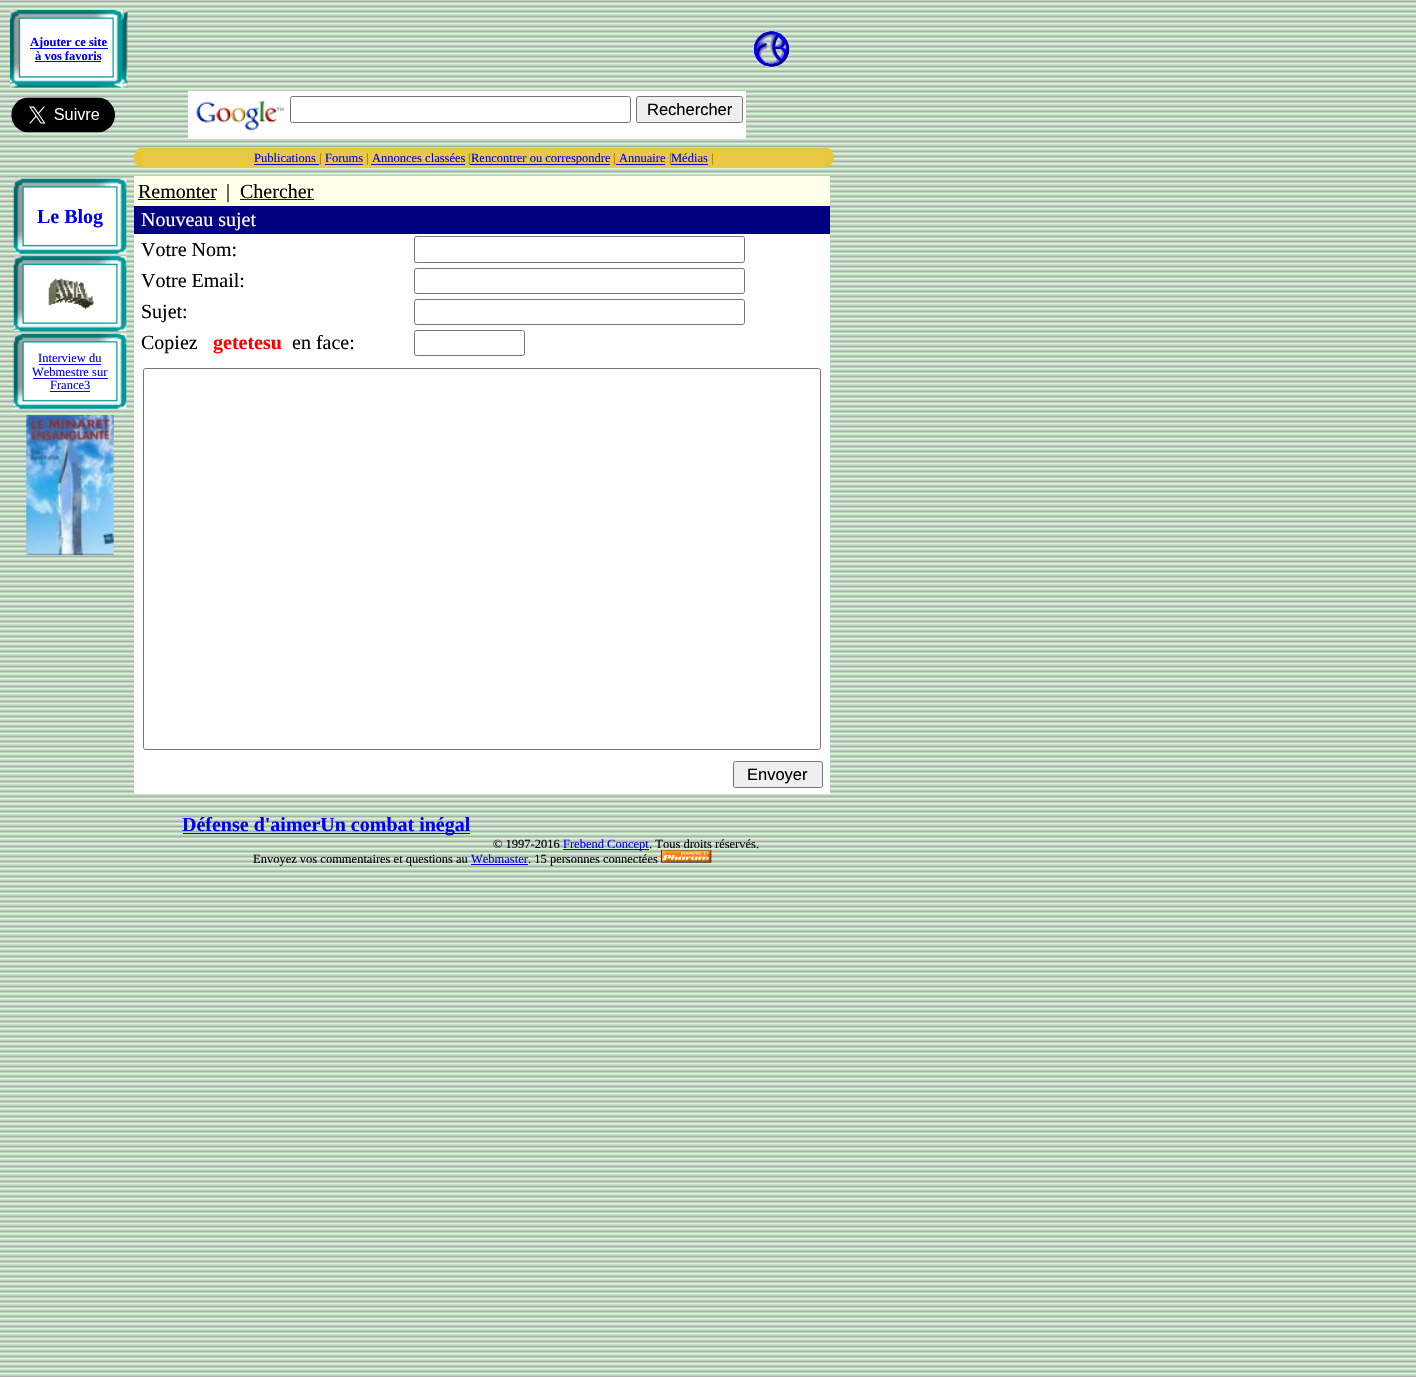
void draw(SkCanvas* canvas) {
  SkPaint paint;
  paint.setAntiAlias(true);
  auto face = [&](const char* family, int weight, float size, bool italic = false) {
    SkFontStyle style(weight, SkFontStyle::kNormal_Width,
      italic ? SkFontStyle::kItalic_Slant : SkFontStyle::kUpright_Slant);
    SkFont result(fontMgr->matchFamilyStyle(family, style), size);
    result.setSubpixel(true);
    return result;
  };
  auto paste = [&](const char* path, float x, float y, float w, float h) {
    auto image = SkImages::DeferredFromEncodedData(SkData::MakeFromFileName(path));
    canvas->drawImageRect(image, SkRect::MakeXYWH(x, y, w, h), SkSamplingOptions());
  };
  canvas->clear(0xffffffff);
  paste("img/1.png", 0, 0, 1416, 1377);
  paste("img/2.png", 10, 10, 118, 78);
  paint.setColor(0xff0000ee);
  canvas->drawRect(SkRect::MakeXYWH(30, 48, 78, 1), paint);
  canvas->drawRect(SkRect::MakeXYWH(35, 61, 66, 1), paint);
  paste("img/3.png", 753, 30, 37, 38);
  paste("img/4.png", 11, 97, 104, 36);
  paint.setColor(0xffffffff);
  canvas->drawRect(SkRect::MakeXYWH(188, 91, 558, 48), paint);
  paste("img/5.png", 196, 101, 88, 30);
  paint.setStroke(true);
  paint.setStrokeWidth(1);
  paint.setColor(0xff767676);
  canvas->drawRoundRect(SkRect::MakeXYWH(290.5f, 96.5f, 340, 26), 2, 2, paint);
  paint.setStroke(false);
  paint.setColor(0xffefefef);
  canvas->drawRoundRect(SkRect::MakeXYWH(636.5f, 96.5f, 106, 26), 2, 2, paint);
  paint.setStroke(true);
  paint.setColor(0xff767676);
  canvas->drawRoundRect(SkRect::MakeXYWH(636.5f, 96.5f, 106, 26), 2, 2, paint);
  paste("img/6.png", 133, 147, 11, 21);
  paint.setStroke(false);
  {
    const struct { float x, y, w, h; SkColor color; } items[] = {
      {144, 148, 680, 20, 0xffe8c846},
      {254, 164, 65, 1, 0xff0000ee},
      {325, 164, 38, 1, 0xff0000ee},
      {371, 164, 94, 1, 0xff0000ee},
      {470, 164, 140, 1, 0xff0000ee},
      {616, 164, 49, 1, 0xff0000ee},
      {671, 164, 37, 1, 0xff0000ee},
    };
    for (auto [x, y, w, h, color] : items) {
      paint.setColor(color);
      canvas->drawRect(SkRect::MakeXYWH(x, y, w, h), paint);
    }
  }
  paste("img/7.png", 823, 147, 11, 21);
  paste("img/8.png", 13, 178, 114, 76);
  paste("img/9.png", 13, 256, 114, 76);
  paste("img/10.png", 48, 278, 46, 31);
  paste("img/8.png", 13, 333, 114, 76);
  {
    const struct { float x, y, w, h; SkColor color; } items[] = {
      {39, 364, 62, 1, 0xff0000ee},
      {33, 378, 75, 1, 0xff0000ee},
      {50, 391, 40, 1, 0xff0000ee},
    };
    for (auto [x, y, w, h, color] : items) {
      paint.setColor(color);
      canvas->drawRect(SkRect::MakeXYWH(x, y, w, h), paint);
    }
  }
  paste("img/11.png", 26, 415, 88, 140);
  {
    const struct { float x, y, w, h; SkColor color; } items[] = {
      {134, 176, 696, 30, 0xffffffea},
      {138, 199, 78, 1, 0xff0000ee},
      {240, 199, 74, 1, 0xff0000ee},
      {134, 206, 696, 28, 0xff000080},
      {134, 234, 696, 31, 0xffffffff},
    };
    for (auto [x, y, w, h, color] : items) {
      paint.setColor(color);
      canvas->drawRect(SkRect::MakeXYWH(x, y, w, h), paint);
    }
  }
  paint.setStroke(true);
  paint.setColor(0xff767676);
  canvas->drawRoundRect(SkRect::MakeXYWH(414.5f, 236.5f, 330, 26), 2, 2, paint);
  paint.setStroke(false);
  paint.setColor(0xffffffff);
  canvas->drawRect(SkRect::MakeXYWH(134, 265, 696, 31), paint);
  paint.setStroke(true);
  paint.setColor(0xff767676);
  canvas->drawRoundRect(SkRect::MakeXYWH(414.5f, 268.5f, 330, 25), 2, 2, paint);
  paint.setStroke(false);
  paint.setColor(0xffffffff);
  canvas->drawRect(SkRect::MakeXYWH(134, 296, 696, 32), paint);
  paint.setStroke(true);
  paint.setColor(0xff767676);
  canvas->drawRoundRect(SkRect::MakeXYWH(414.5f, 299.5f, 330, 25), 2, 2, paint);
  paint.setStroke(false);
  paint.setColor(0xffffffff);
  canvas->drawRect(SkRect::MakeXYWH(134, 328, 696, 466), paint);
  paint.setStroke(true);
  paint.setColor(0xff767676);
  canvas->drawRoundRect(SkRect::MakeXYWH(414.5f, 330.5f, 110, 25), 2, 2, paint);
  canvas->drawRoundRect(SkRect::MakeXYWH(143.5f, 368.5f, 677, 381), 2, 2, paint);
  paint.setStroke(false);
  paint.setColor(0xffefefef);
  canvas->drawRoundRect(SkRect::MakeXYWH(733.5f, 761.5f, 89, 26), 2, 2, paint);
  paint.setStroke(true);
  paint.setColor(0xff767676);
  canvas->drawRoundRect(SkRect::MakeXYWH(733.5f, 761.5f, 89, 26), 2, 2, paint);
  paint.setStroke(false);
  {
    const struct { float x, y, w, h; SkColor color; } items[] = {
      {183, 833, 287, 1, 0xff0000ee},
      {563, 849, 86, 1, 0xff0000ee},
      {471, 864, 57, 1, 0xff0000ee},
    };
    for (auto [x, y, w, h, color] : items) {
      paint.setColor(color);
      canvas->drawRect(SkRect::MakeXYWH(x, y, w, h), paint);
    }
  }
  paste("img/12.png", 661, 850, 51, 13);
  auto f0 = face("Liberation Serif", 700, 12.5f);
  canvas->drawString("Ajouter ce site", 30, 46, f0, paint);
  canvas->drawString("à vos favoris", 35, 60, f0, paint);
  auto f1 = face("Liberation Sans", 400, 16.5f);
  paint.setColor(0xff000000);
  canvas->drawString("Rechercher", 647, 115, f1, paint);
  auto f2 = face("Liberation Serif", 400, 12.5f);
  paint.setColor(0xff0000ee);
  canvas->drawString("Publications", 254, 162, f2, paint);
  paint.setColor(0xff996600);
  canvas->drawString("|", 319, 162, f2, paint);
  paint.setColor(0xff0000ee);
  canvas->drawString("Forums", 325, 162, f2, paint);
  paint.setColor(0xff996600);
  canvas->drawString("|", 366, 162, f2, paint);
  paint.setColor(0xff0000ee);
  canvas->drawString("Annonces classées", 372, 162, f2, paint);
  paint.setColor(0xff996600);
  canvas->drawString("|", 468, 162, f2, paint);
  paint.setColor(0xff0000ee);
  canvas->drawString("Rencontrer ou correspondre", 471, 162, f2, paint);
  paint.setColor(0xff996600);
  canvas->drawString("|", 613, 162, f2, paint);
  paint.setColor(0xff0000ee);
  canvas->drawString("Annuaire", 619, 162, f2, paint);
  paint.setColor(0xff996600);
  canvas->drawString("|", 669, 162, f2, paint);
  paint.setColor(0xff0000ee);
  canvas->drawString("Médias", 671, 162, f2, paint);
  paint.setColor(0xff996600);
  canvas->drawString("|", 711, 162, f2, paint);
  auto f3 = face("Liberation Serif", 700, 20);
  paint.setColor(0xff0000ee);
  canvas->drawString("Le Blog", 37, 223, f3, paint);
  {
    const struct { const char* s; float x, y; } items[] = {
      {"Interview du", 38, 362},
      {"Webmestre sur", 32, 376},
      {"France3", 50, 389},
    };
    for (auto [s, x, y] : items) {
      canvas->drawString(s, x, y, f2, paint);
    }
  }
  auto f4 = face("Liberation Serif", 400, 20);
  paint.setColor(0xff000000);
  {
    const struct { const char* s; float x, y; } items[] = {
      {"Remonter", 138, 198},
      {"|", 226, 198},
      {"Chercher", 240, 198},
    };
    for (auto [s, x, y] : items) {
      canvas->drawString(s, x, y, f4, paint);
    }
  }
  paint.setColor(0xffffffff);
  canvas->drawString("Nouveau sujet", 141, 226, f4, paint);
  paint.setColor(0xff000000);
  {
    const struct { const char* s; float x, y; } items[] = {
      {"Votre Nom:", 141, 256},
      {"Votre Email:", 141, 287},
      {"Sujet:", 141, 318},
      {"Copiez", 141, 349},
    };
    for (auto [s, x, y] : items) {
      canvas->drawString(s, x, y, f4, paint);
    }
  }
  paint.setColor(0xffff0000);
  canvas->drawString("getetesu", 213, 349, f3, paint);
  paint.setColor(0xff000000);
  canvas->drawString("en face:", 292, 349, f4, paint);
  canvas->drawString("Envoyer", 747, 780, f1, paint);
  paint.setColor(0xff0000ee);
  canvas->drawString("Défense d'aimerUn combat inégal", 182, 831, f3, paint);
  paint.setColor(0xff000000);
  canvas->drawString("© 1997-2016", 493, 848, f2, paint);
  paint.setColor(0xff0000ee);
  canvas->drawString("Frebend Concept", 563, 848, f2, paint);
  paint.setColor(0xff000000);
  canvas->drawString(". Tous droits réservés.", 649, 848, f2, paint);
  canvas->drawString("Envoyez vos commentaires et questions au", 253, 863, f2, paint);
  paint.setColor(0xff0000ee);
  canvas->drawString("Webmaster", 471, 863, f2, paint);
  paint.setColor(0xff000000);
  canvas->drawString(". 15 personnes connectées", 528, 863, f2, paint);
}
